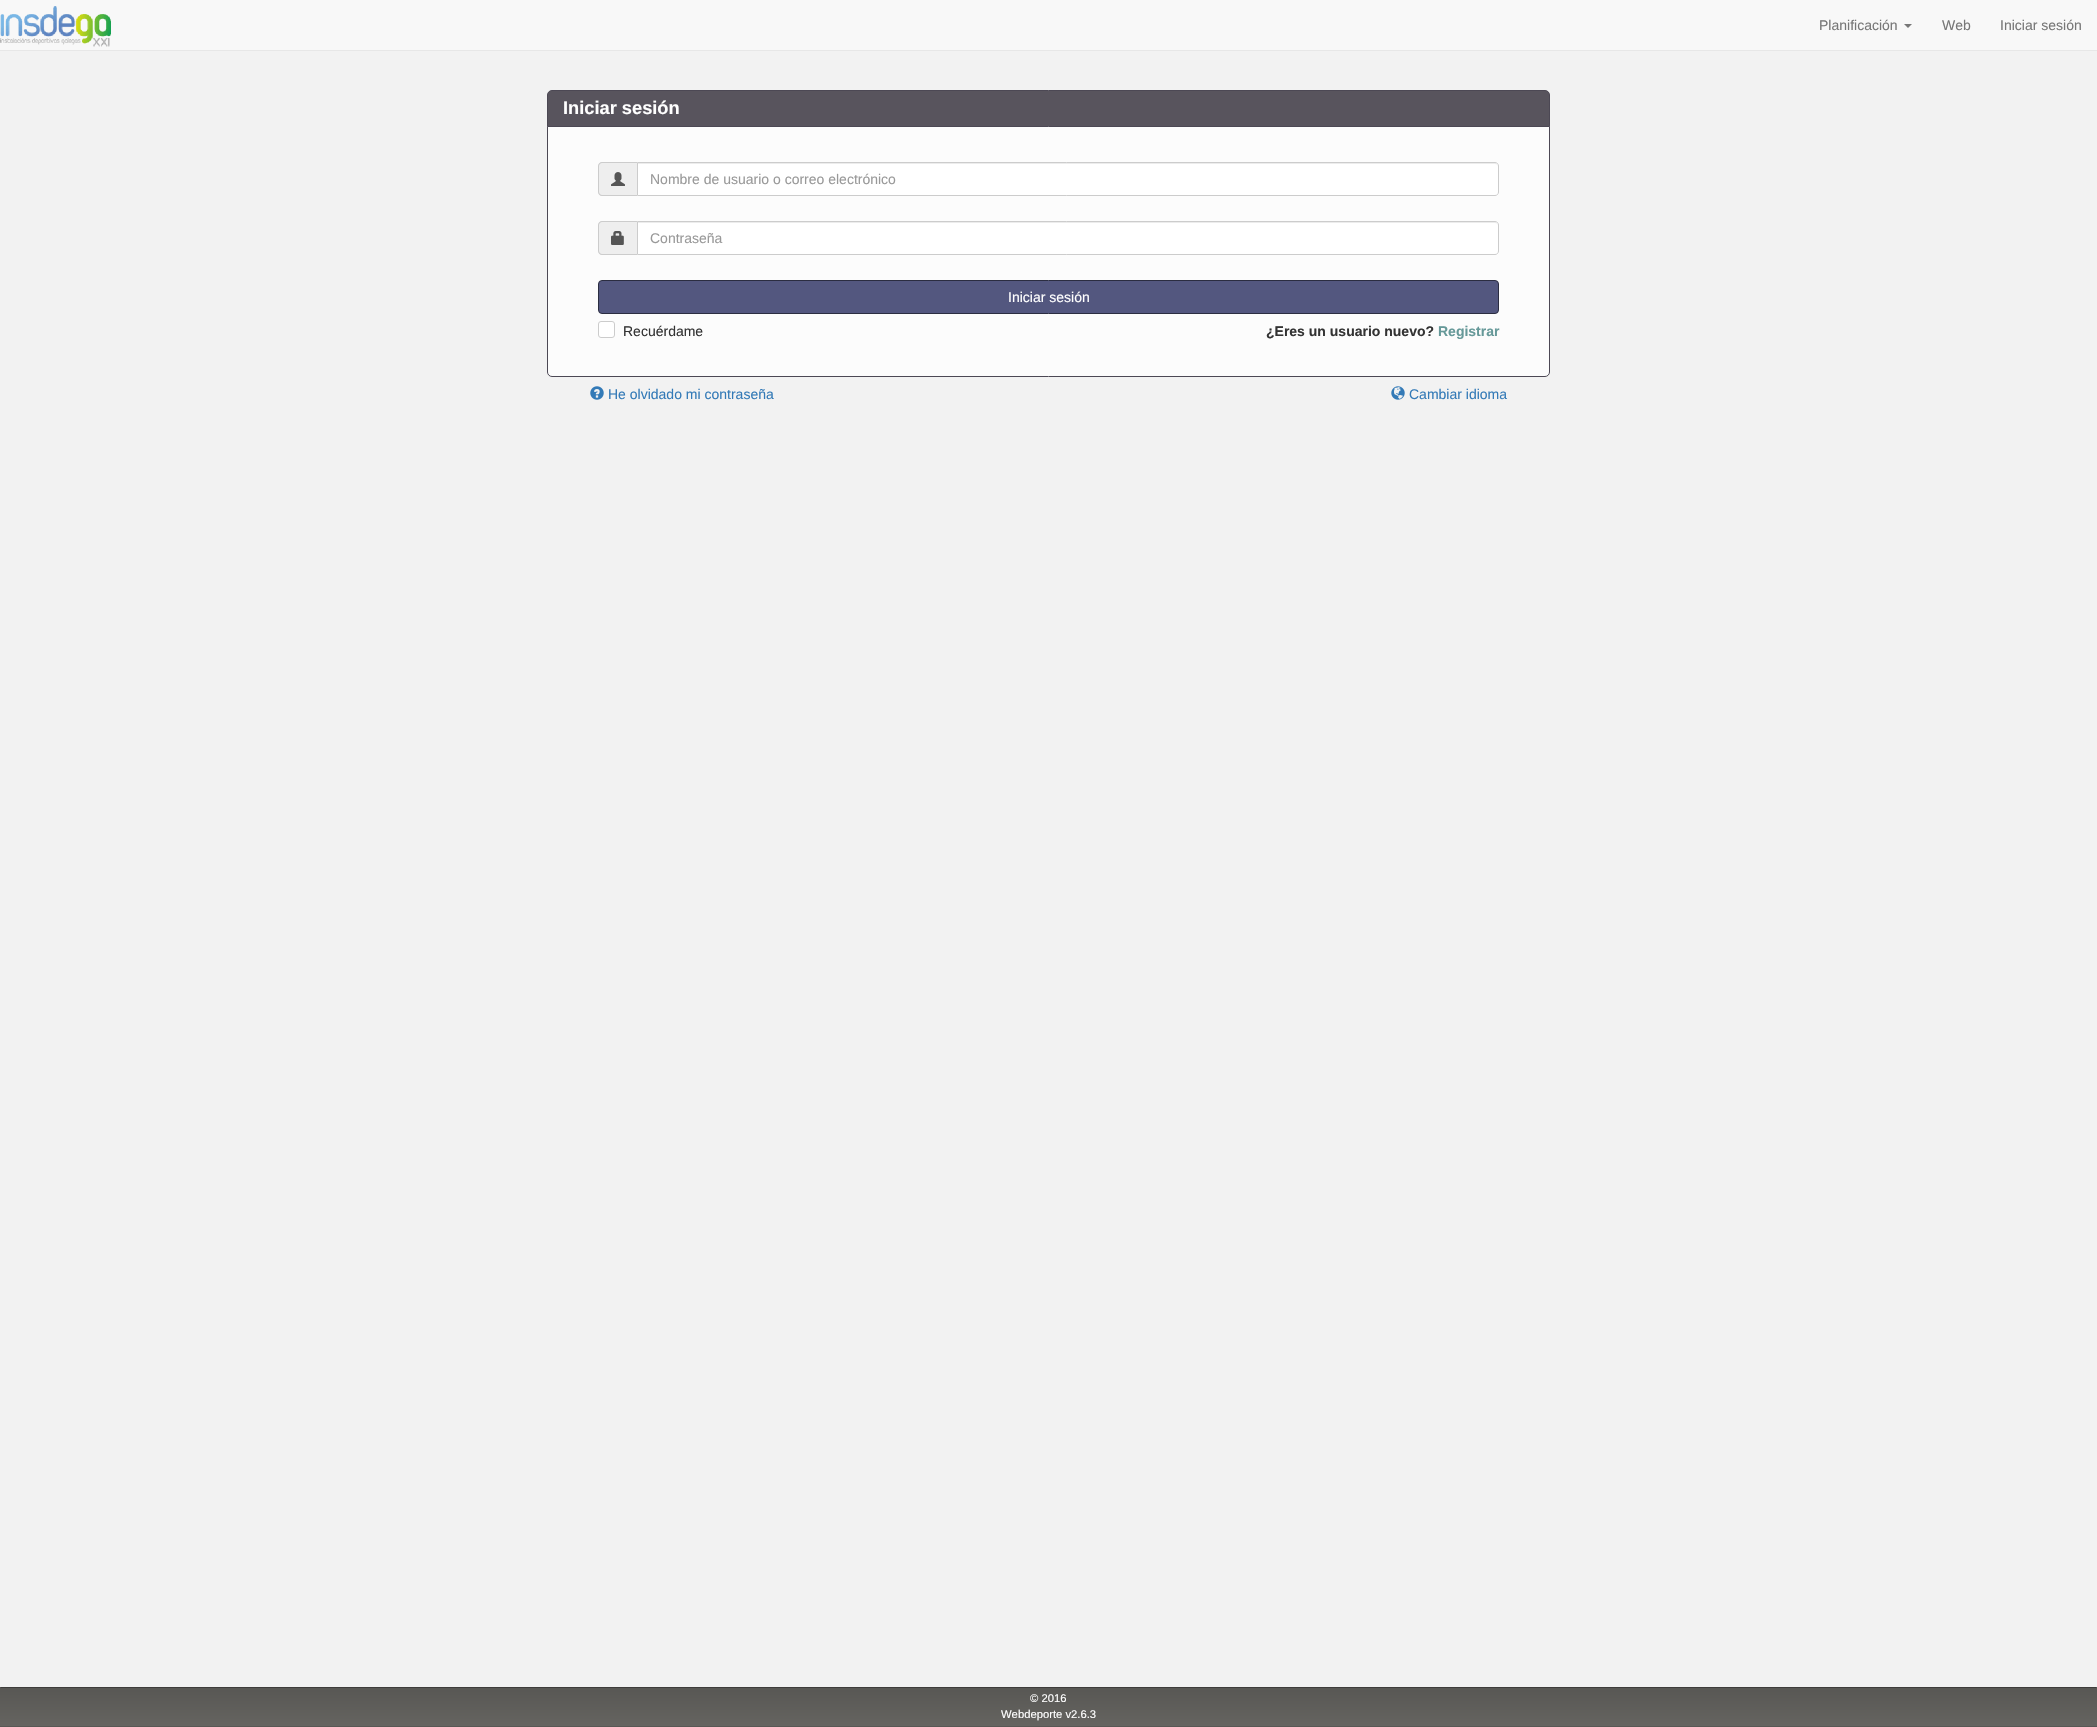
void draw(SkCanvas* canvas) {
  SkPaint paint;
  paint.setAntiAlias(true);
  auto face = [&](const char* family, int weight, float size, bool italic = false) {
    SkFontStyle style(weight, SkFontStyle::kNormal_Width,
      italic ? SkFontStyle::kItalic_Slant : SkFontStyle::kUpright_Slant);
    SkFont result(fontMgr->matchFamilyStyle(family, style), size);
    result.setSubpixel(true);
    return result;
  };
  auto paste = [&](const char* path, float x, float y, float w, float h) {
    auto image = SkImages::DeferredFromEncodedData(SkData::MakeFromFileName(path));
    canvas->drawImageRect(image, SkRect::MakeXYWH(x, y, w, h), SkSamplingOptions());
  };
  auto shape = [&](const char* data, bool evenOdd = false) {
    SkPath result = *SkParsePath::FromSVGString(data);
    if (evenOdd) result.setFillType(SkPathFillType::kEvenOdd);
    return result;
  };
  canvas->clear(0xfff2f2f2);
  paint.setColor(0xfff8f8f8);
  canvas->drawRect(SkRect::MakeXYWH(0, 0, 2097, 50), paint);
  paint.setColor(0xffe7e7e7);
  canvas->drawRect(SkRect::MakeXYWH(0, 50, 2097, 1), paint);
  paste("img/1.png", 0, 6, 111, 41);
  paint.setColor(0xff777777);
  canvas->drawPath(shape("M1904 24H1912L1908 28Z"), paint);
  paint.setColor(0xff58545d);
  canvas->drawPath(shape("M552 90.5H1545C1547.5 90.5 1549.5 92.5 1549.5 95V126.5H547.5V95C547.5 92.5 549.5 90.5 552 90.5Z"), paint);
  paint.setStroke(true);
  paint.setStrokeWidth(1);
  paint.setColor(0xff4c4854);
  canvas->drawPath(shape("M552 90.5H1545C1547.5 90.5 1549.5 92.5 1549.5 95V126.5H547.5V95C547.5 92.5 549.5 90.5 552 90.5Z"), paint);
  paint.setStroke(false);
  paint.setColor(0xfffcfcfc);
  canvas->drawPath(shape("M547.5 126.5H1549.5V372C1549.5 374.5 1547.5 376.5 1545 376.5H552C549.5 376.5 547.5 374.5 547.5 372Z"), paint);
  paint.setStroke(true);
  paint.setColor(0xff4c4854);
  canvas->drawPath(shape("M547.5 126.5H1549.5V372C1549.5 374.5 1547.5 376.5 1545 376.5H552C549.5 376.5 547.5 374.5 547.5 372Z"), paint);
  paint.setStroke(false);
  paint.setColor(0xffeeeeee);
  canvas->drawPath(shape("M602 162H637V196H602C600 196 598 194 598 192V166C598 164 600 162 602 162Z"), paint);
  paint.setColor(0xffcccccc);
  canvas->drawPath(shape("M602 162H637V196H602C600 196 598 194 598 192V166C598 164 600 162 602 162ZM602 163H637V195H602C600.5 195 599 193.5 599 192V166C599 164.5 600.5 163 602 163Z", true), paint);
  paste("img/2.png", 611, 172, 14, 14);
  paint.setColor(0xffffffff);
  canvas->drawPath(shape("M637 162H1495C1497 162 1499 164 1499 166V192C1499 194 1497 196 1495 196H637Z"), paint);
  paint.setColor(0xffececec);
  canvas->drawPath(shape("M638 164H1495C1497 164 1498 165 1498 167C1498 165 1497 163 1495 163H638Z"), paint);
  paint.setStroke(true);
  paint.setColor(0xffcccccc);
  canvas->drawPath(shape("M637.5 162.5H1495C1497 162.5 1498.5 164 1498.5 166V192C1498.5 194 1497 195.5 1495 195.5H637.5Z"), paint);
  paint.setStroke(false);
  paint.setColor(0xffeeeeee);
  canvas->drawPath(shape("M602 221H637V255H602C600 255 598 253 598 251V225C598 223 600 221 602 221Z"), paint);
  paint.setColor(0xffcccccc);
  canvas->drawPath(shape("M602 221H637V255H602C600 255 598 253 598 251V225C598 223 600 221 602 221ZM602 222H637V254H602C600.5 254 599 252.5 599 251V225C599 223.5 600.5 222 602 222Z", true), paint);
  paste("img/3.png", 611, 231, 13, 14);
  paint.setColor(0xffffffff);
  canvas->drawPath(shape("M637 221H1495C1497 221 1499 223 1499 225V251C1499 253 1497 255 1495 255H637Z"), paint);
  paint.setColor(0xffececec);
  canvas->drawPath(shape("M638 223H1495C1497 223 1498 224 1498 226C1498 224 1497 222 1495 222H638Z"), paint);
  paint.setStroke(true);
  paint.setColor(0xffcccccc);
  canvas->drawPath(shape("M637.5 221.5H1495C1497 221.5 1498.5 223 1498.5 225V251C1498.5 253 1497 254.5 1495 254.5H637.5Z"), paint);
  paint.setStroke(false);
  paint.setColor(0xff53577f);
  canvas->drawRoundRect(SkRect::MakeXYWH(598.5f, 280.5f, 900, 33), 3.5f, 3.5f, paint);
  paint.setStroke(true);
  paint.setColor(0xff2b2d41);
  canvas->drawRoundRect(SkRect::MakeXYWH(598.5f, 280.5f, 900, 33), 3.5f, 3.5f, paint);
  paint.setStroke(false);
  paint.setColor(0xffffffff);
  canvas->drawRoundRect(SkRect::MakeXYWH(598.5f, 321.5f, 16, 16), 2.5f, 2.5f, paint);
  paint.setStroke(true);
  paint.setColor(0xffcccccc);
  canvas->drawRoundRect(SkRect::MakeXYWH(598.5f, 321.5f, 16, 16), 2.5f, 2.5f, paint);
  paste("img/4.png", 590, 386, 14, 14);
  paste("img/5.png", 1391, 386, 14, 14);
  paint.setStroke(false);
  {
    const SkColor colors[] = {0xff656460, 0xff585754};
    const float stops[] = {0, 1};
    const SkPoint ends[] = {{1, 1688}, {1, 1650}};
    paint.setShader(SkGradientShader::MakeLinear(ends, colors, stops, 2, SkTileMode::kClamp));
    paint.setAlpha(255);
  }
  canvas->drawRect(SkRect::MakeXYWH(0, 1687, 2097, 1), paint);
  {
    const SkColor colors[] = {0xff656460, 0xff585754};
    const float stops[] = {0, 1};
    const SkPoint ends[] = {{1, 1726}, {1, 1688}};
    paint.setShader(SkGradientShader::MakeLinear(ends, colors, stops, 2, SkTileMode::kClamp));
    paint.setAlpha(255);
  }
  canvas->drawRect(SkRect::MakeXYWH(0, 1688, 2097, 38), paint);
  {
    const SkColor colors[] = {0xff656460, 0xff585754};
    const float stops[] = {0, 1};
    const SkPoint ends[] = {{1, 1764}, {1, 1726}};
    paint.setShader(SkGradientShader::MakeLinear(ends, colors, stops, 2, SkTileMode::kClamp));
    paint.setAlpha(255);
  }
  canvas->drawRect(SkRect::MakeXYWH(0, 1726, 2097, 1), paint);
  paint.setShader(nullptr);
  paint.setColor(0xff3e3d3b);
  canvas->drawPath(shape("M0 1687H2097L2096 1688H1Z"), paint);
  auto f0 = face("Liberation Sans", 400, 14);
  paint.setColor(0xff777777);
  {
    const struct { const char* s; float x, y; } items[] = {
      {"Planificación", 1819, 30},
      {"Web", 1942, 30},
      {"Iniciar sesión", 2000, 30},
    };
    for (auto [s, x, y] : items) {
      canvas->drawString(s, x, y, f0, paint);
    }
  }
  auto f1 = face("Liberation Sans", 700, 18.25f);
  paint.setColor(0xffffffff);
  canvas->drawString("Iniciar sesión", 563, 114, f1, paint);
  paint.setColor(0xff999999);
  canvas->drawString("Nombre de usuario o correo electrónico", 650, 184, f0, paint);
  canvas->drawString("Contraseña", 650, 243, f0, paint);
  paint.setColor(0xffffffff);
  canvas->drawString("Iniciar sesión", 1008, 302, f0, paint);
  paint.setColor(0xff333333);
  canvas->drawString("Recuérdame", 623, 336, f0, paint);
  auto f2 = face("Liberation Sans", 700, 14);
  canvas->drawString("¿Eres un usuario nuevo?", 1266, 336, f2, paint);
  paint.setColor(0xff669999);
  canvas->drawString("Registrar", 1438, 336, f2, paint);
  paint.setColor(0xff337ab7);
  canvas->drawString("He olvidado mi contraseña", 608, 399, f0, paint);
  canvas->drawString("Cambiar idioma", 1409, 399, f0, paint);
  auto f3 = face("Liberation Sans", 400, 11.25f);
  paint.setColor(0xffffffff);
  canvas->drawString("© 2016", 1030, 1702, f3, paint);
  canvas->drawString("Webdeporte v2.6.3", 1001, 1718, f3, paint);
}
